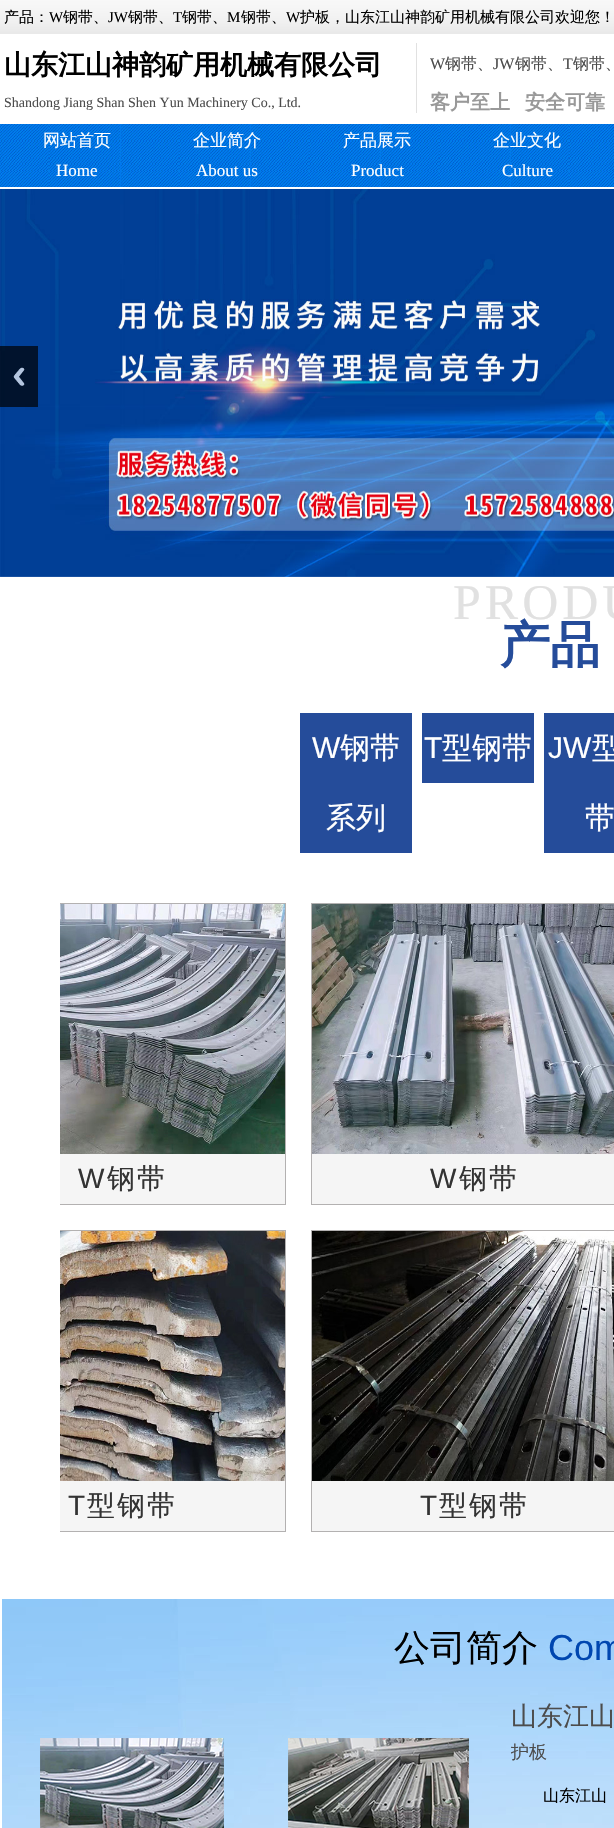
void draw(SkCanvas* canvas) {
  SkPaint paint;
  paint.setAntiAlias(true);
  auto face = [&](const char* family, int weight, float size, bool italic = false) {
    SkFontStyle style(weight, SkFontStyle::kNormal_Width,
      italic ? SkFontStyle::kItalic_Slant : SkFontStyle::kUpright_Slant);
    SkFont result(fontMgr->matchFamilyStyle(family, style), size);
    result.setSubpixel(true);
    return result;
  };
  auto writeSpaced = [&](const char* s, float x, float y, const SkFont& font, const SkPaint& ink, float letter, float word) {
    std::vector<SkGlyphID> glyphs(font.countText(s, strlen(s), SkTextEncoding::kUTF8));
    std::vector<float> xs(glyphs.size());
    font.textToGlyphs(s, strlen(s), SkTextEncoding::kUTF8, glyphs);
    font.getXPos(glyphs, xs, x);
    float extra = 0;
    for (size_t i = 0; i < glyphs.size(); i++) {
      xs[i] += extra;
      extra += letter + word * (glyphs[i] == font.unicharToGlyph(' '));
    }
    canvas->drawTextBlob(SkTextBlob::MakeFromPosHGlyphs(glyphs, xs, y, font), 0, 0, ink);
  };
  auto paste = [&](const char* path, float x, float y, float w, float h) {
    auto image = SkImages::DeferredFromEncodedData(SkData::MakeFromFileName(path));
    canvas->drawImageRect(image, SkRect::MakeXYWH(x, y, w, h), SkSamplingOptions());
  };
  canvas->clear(0xffffffff);
  paste("img/1.png", 0, 0, 614, 34);
  paint.setColor(0xffe1e1e1);
  canvas->drawRect(SkRect::MakeXYWH(416, 43, 1, 70), paint);
  paste("img/2.png", 0, 124, 614, 63);
  paste("img/3.png", 0, 189, 614, 388);
  paste("img/4.png", 0, 346, 38, 61);
  {
    const struct { float x, y, w, h; SkColor color; } items[] = {
      {300, 713, 112, 140, 0xff254c9a},
      {422, 713, 112, 70, 0xff254c9a},
      {544, 713, 70, 140, 0xff254c9a},
    };
    for (auto [x, y, w, h, color] : items) {
      paint.setColor(color);
      canvas->drawRect(SkRect::MakeXYWH(x, y, w, h), paint);
    }
  }
  canvas->save();
  canvas->clipRect(SkRect::MakeXYWH(60, 903, 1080, 654));
  paint.setStroke(true);
  paint.setStrokeWidth(1);
  paint.setColor(0xffb3b1b1);
  canvas->drawRect(SkRect::MakeXYWH(-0.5f, 903.5f, 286, 301), paint);
  canvas->restore();
  paste("img/5.png", 60, 904, 225, 250);
  paint.setStroke(false);
  paint.setColor(0xfff5f5f5);
  canvas->drawRect(SkRect::MakeXYWH(60, 1154, 225, 50), paint);
  paint.setStroke(true);
  paint.setColor(0xffb3b1b1);
  canvas->drawRect(SkRect::MakeXYWH(311.5f, 903.5f, 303, 301), paint);
  paste("img/6.png", 312, 904, 302, 250);
  paint.setStroke(false);
  paint.setColor(0xfff5f5f5);
  canvas->drawRect(SkRect::MakeXYWH(312, 1154, 302, 50), paint);
  canvas->save();
  canvas->clipRect(SkRect::MakeXYWH(60, 903, 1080, 654));
  paint.setStroke(true);
  paint.setColor(0xffb3b1b1);
  canvas->drawRect(SkRect::MakeXYWH(-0.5f, 1230.5f, 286, 301), paint);
  canvas->restore();
  paste("img/7.png", 60, 1231, 225, 250);
  paint.setStroke(false);
  paint.setColor(0xfff5f5f5);
  canvas->drawRect(SkRect::MakeXYWH(60, 1481, 225, 50), paint);
  paint.setStroke(true);
  paint.setColor(0xffb3b1b1);
  canvas->drawRect(SkRect::MakeXYWH(311.5f, 1230.5f, 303, 301), paint);
  paste("img/8.png", 312, 1231, 302, 250);
  paint.setStroke(false);
  paint.setColor(0xfff5f5f5);
  canvas->drawRect(SkRect::MakeXYWH(312, 1481, 302, 50), paint);
  paste("img/9.png", 2, 1599, 612, 229);
  paste("img/10.png", 40, 1738, 429, 90);
  auto f0 = face("WenQuanYi Zen Hei", 500, 15);
  paint.setColor(0xff000000);
  canvas->drawString("产品：", 4, 22, f0, paint);
  auto f1 = face("Liberation Serif", 400, 15);
  canvas->drawString("W", 49, 22, f1, paint);
  canvas->drawString("钢带、", 63, 22, f0, paint);
  canvas->drawString("JW", 108, 22, f1, paint);
  canvas->drawString("钢带、", 128, 22, f0, paint);
  canvas->drawString("T", 173, 22, f1, paint);
  canvas->drawString("钢带、", 182, 22, f0, paint);
  canvas->drawString("M", 227, 22, f1, paint);
  canvas->drawString("钢带、", 241, 22, f0, paint);
  canvas->drawString("W", 286, 22, f1, paint);
  canvas->drawString("护板，山东江山神韵矿用机械有限公司欢迎您！", 300, 22, f0, paint);
  auto f2 = face("WenQuanYi Zen Hei", 700, 27);
  canvas->drawString("山东江山神韵矿用机械有限公司", 4, 74, f2, paint);
  auto f3 = face("Liberation Serif", 400, 16);
  paint.setColor(0xff4c4c4c);
  canvas->drawString("W", 430, 69, f3, paint);
  auto f4 = face("WenQuanYi Zen Hei", 500, 16);
  canvas->drawString("钢带、", 445, 69, f4, paint);
  canvas->drawString("JW", 493, 69, f3, paint);
  canvas->drawString("钢带、", 515, 69, f4, paint);
  canvas->drawString("T", 563, 69, f3, paint);
  canvas->drawString("钢带、", 573, 69, f4, paint);
  auto f5 = face("Liberation Serif", 400, 14);
  canvas->drawString("Shandong Jiang Shan Shen Yun Machinery Co., Ltd.", 4, 107, f5, paint);
  auto f6 = face("WenQuanYi Zen Hei", 700, 20);
  paint.setColor(0xff999999);
  canvas->drawString("客户至上", 430, 109, f6, paint);
  canvas->drawString("安全可靠", 525, 109, f6, paint);
  auto f7 = face("WenQuanYi Zen Hei", 500, 17);
  paint.setColor(0xffffffff);
  canvas->drawString("网站首页", 43, 146, f7, paint);
  auto f8 = face("Liberation Serif", 400, 17);
  canvas->drawString("Home", 56, 176, f8, paint);
  canvas->drawString("企业简介", 193, 146, f7, paint);
  canvas->drawString("About us", 196, 176, f8, paint);
  canvas->drawString("产品展示", 343, 146, f7, paint);
  canvas->drawString("Product", 351, 176, f8, paint);
  canvas->drawString("企业文化", 493, 146, f7, paint);
  canvas->drawString("Culture", 502, 176, f8, paint);
  auto f9 = face("Liberation Serif", 400, 50);
  paint.setColor(0xffe1e1e1);
  writeSpaced("PRODU", 453, 619, f9, paint, 4, 0);
  auto f10 = face("WenQuanYi Zen Hei", 700, 50);
  paint.setColor(0xff254c9a);
  canvas->drawString("产品", 500, 662, f10, paint);
  auto f11 = face("Liberation Sans", 400, 30);
  paint.setColor(0xffffffff);
  canvas->drawString("W", 312, 758, f11, paint);
  auto f12 = face("WenQuanYi Zen Hei", 500, 30);
  canvas->drawString("钢带", 340, 758, f12, paint);
  canvas->drawString("系列", 326, 828, f12, paint);
  canvas->drawString("T", 424, 758, f11, paint);
  canvas->drawString("型钢带", 442, 758, f12, paint);
  canvas->drawString("JW", 548, 758, f11, paint);
  canvas->drawString("型", 592, 758, f12, paint);
  canvas->drawString("带", 585, 828, f12, paint);
  auto f13 = face("Liberation Sans", 400, 28);
  paint.setColor(0xff333333);
  writeSpaced("W", 78, 1188, f13, paint, 2, 0);
  auto f14 = face("WenQuanYi Zen Hei", 500, 28);
  writeSpaced("钢带", 107, 1188, f14, paint, 2, 0);
  writeSpaced("W", 430, 1188, f13, paint, 2, 0);
  writeSpaced("钢带", 459, 1188, f14, paint, 2, 0);
  writeSpaced("T", 68, 1515, f13, paint, 2, 0);
  writeSpaced("型钢带", 87, 1515, f14, paint, 2, 0);
  writeSpaced("T", 420, 1515, f13, paint, 2, 0);
  writeSpaced("型钢带", 439, 1515, f14, paint, 2, 0);
  auto f15 = face("WenQuanYi Zen Hei", 500, 36);
  paint.setColor(0xff000000);
  canvas->drawString("公司简介", 394, 1660, f15, paint);
  auto f16 = face("Liberation Sans", 400, 36);
  paint.setColor(0xff0046b0);
  canvas->drawString("Com", 548, 1660, f16, paint);
  auto f17 = face("WenQuanYi Zen Hei", 500, 26);
  paint.setColor(0xff4c4c4c);
  canvas->drawString("山东江山", 511, 1725, f17, paint);
  auto f18 = face("WenQuanYi Zen Hei", 500, 18);
  canvas->drawString("护板", 511, 1758, f18, paint);
  paint.setColor(0xff000000);
  canvas->drawString("山东江山", 543, 1801, f4, paint);
}
